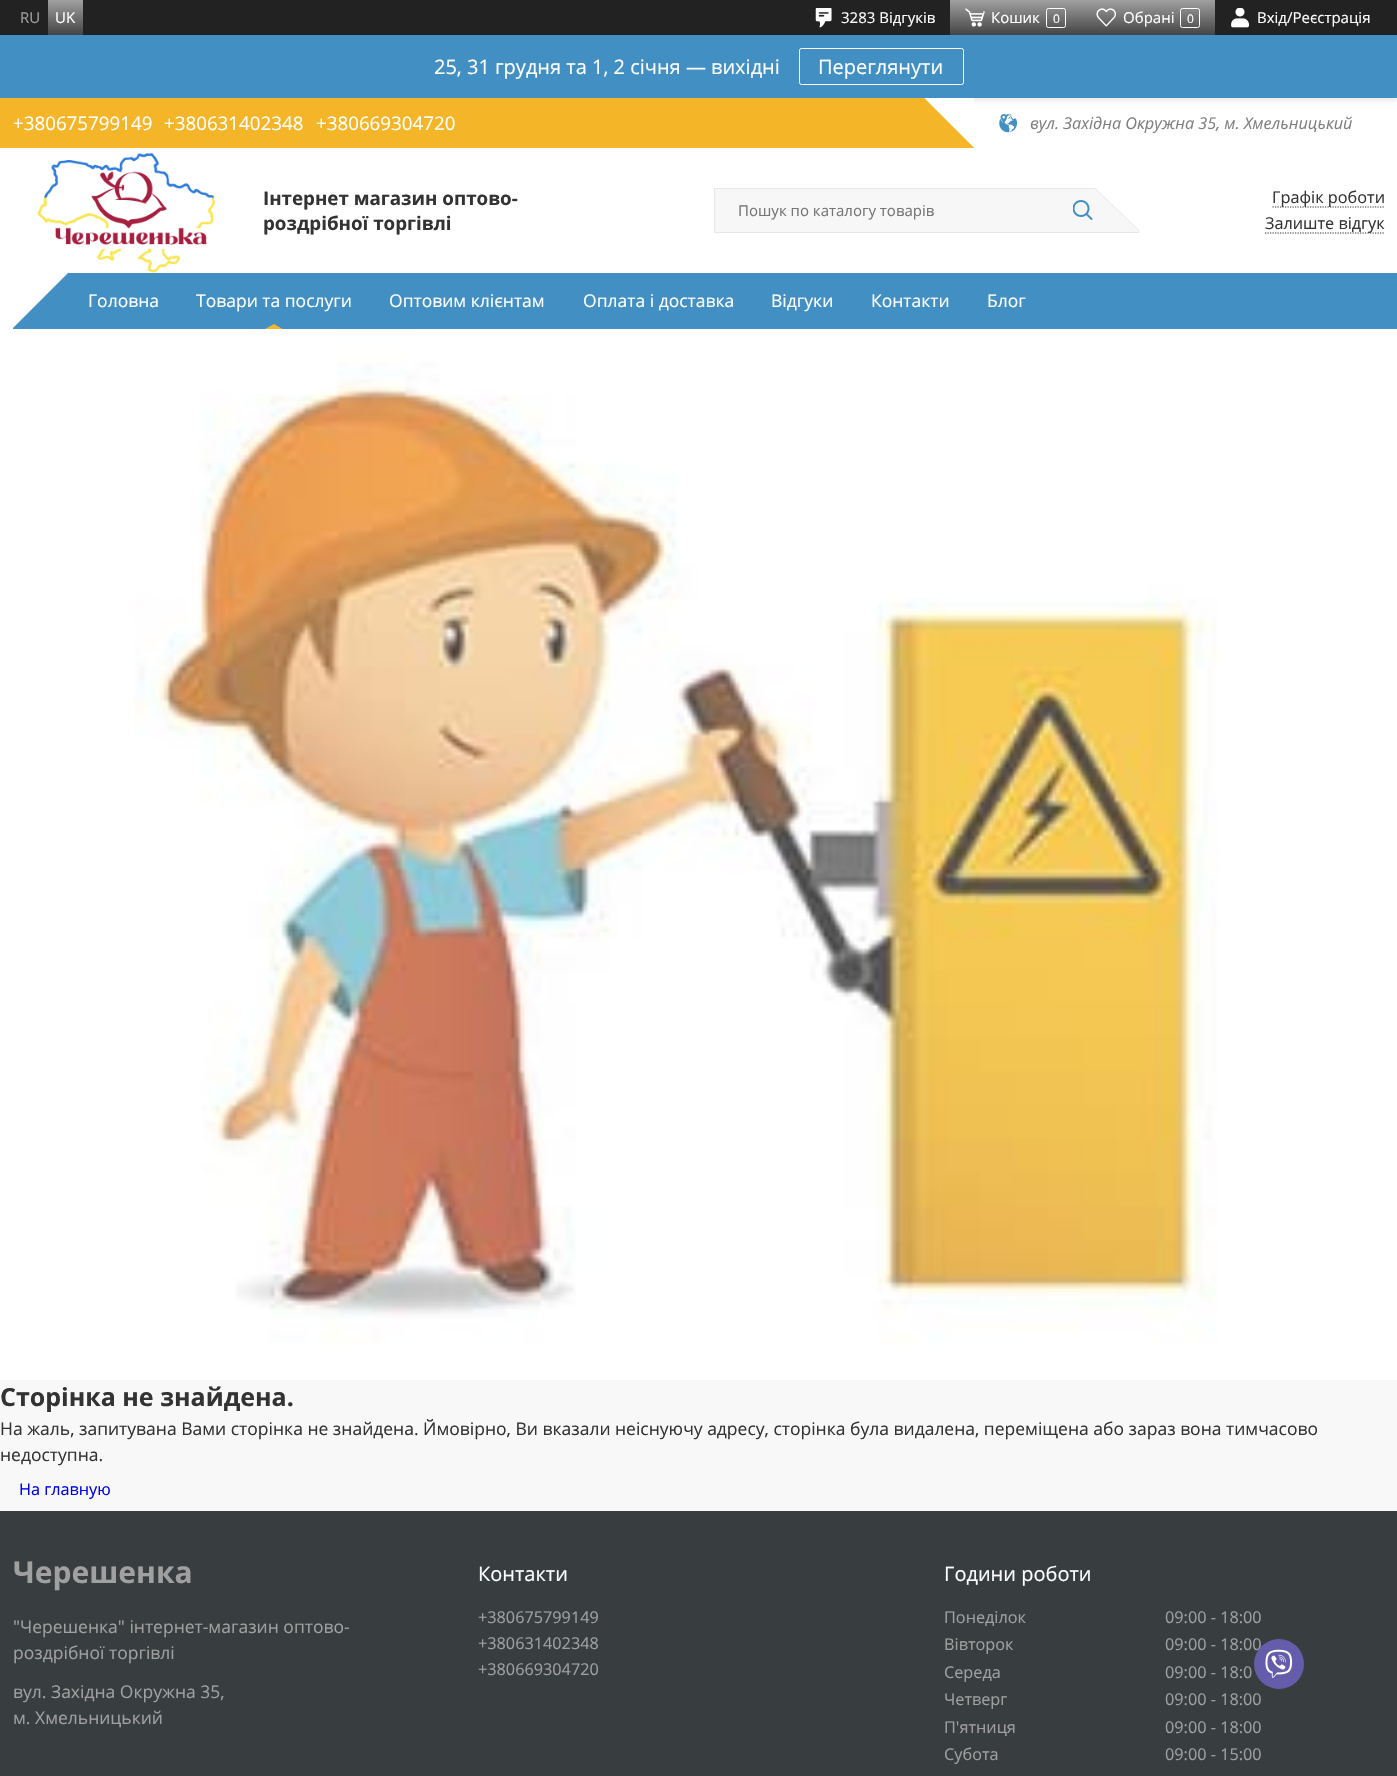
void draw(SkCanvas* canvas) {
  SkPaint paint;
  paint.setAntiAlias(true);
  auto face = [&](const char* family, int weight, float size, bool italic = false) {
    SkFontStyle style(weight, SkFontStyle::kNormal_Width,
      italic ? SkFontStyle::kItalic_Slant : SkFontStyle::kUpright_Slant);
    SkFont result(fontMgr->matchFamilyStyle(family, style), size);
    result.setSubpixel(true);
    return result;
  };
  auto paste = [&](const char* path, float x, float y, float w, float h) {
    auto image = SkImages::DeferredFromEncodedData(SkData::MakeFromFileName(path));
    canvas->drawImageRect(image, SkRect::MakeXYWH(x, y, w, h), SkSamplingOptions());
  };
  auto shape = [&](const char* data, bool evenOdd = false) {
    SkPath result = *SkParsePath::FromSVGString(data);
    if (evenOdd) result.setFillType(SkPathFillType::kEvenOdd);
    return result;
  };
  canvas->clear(0xfff8f8f8);
  paint.setColor(0xffffffff);
  canvas->drawRect(SkRect::MakeXYWH(0, 98, 1397, 175), paint);
  paint.setColor(0xff222222);
  canvas->drawRect(SkRect::MakeXYWH(0, 0, 1397, 35), paint);
  paint.setColor(0x1a000000);
  paint.setMaskFilter(SkMaskFilter::MakeBlur(kNormal_SkBlurStyle, 3));
  canvas->drawRect(SkRect::MakeXYWH(0, 38, 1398, 62), paint);
  paint.setMaskFilter(nullptr);
  {
    const SkColor colors[] = {0xffa0a0a0, 0xff444444};
    const float stops[] = {0, 1};
    const SkPoint ends[] = {{65, 0}, {65, 35}};
    paint.setShader(SkGradientShader::MakeLinear(ends, colors, stops, 2, SkTileMode::kClamp));
    paint.setAlpha(255);
  }
  canvas->drawRect(SkRect::MakeXYWH(48, 0, 35, 35), paint);
  paste("img/1.png", 815, 8, 17, 20);
  {
    const SkColor colors[] = {0xffa0a0a0, 0xff444444};
    const float stops[] = {0, 1};
    const SkPoint ends[] = {{1016, 0}, {1016, 35}};
    paint.setShader(SkGradientShader::MakeLinear(ends, colors, stops, 2, SkTileMode::kClamp));
    paint.setAlpha(255);
  }
  canvas->drawRect(SkRect::MakeXYWH(950, 0, 131, 35), paint);
  paste("img/2.png", 965, 8, 20, 19);
  paint.setStroke(true);
  paint.setStrokeWidth(1);
  paint.setShader(nullptr);
  paint.setColor(0xffffffff);
  canvas->drawRoundRect(SkRect::MakeXYWH(1046.5f, 8.5f, 19, 19), 2, 2, paint);
  paint.setStroke(false);
  {
    const SkColor colors[] = {0xffa0a0a0, 0xff444444};
    const float stops[] = {0, 1};
    const SkPoint ends[] = {{1148, 0}, {1148, 35}};
    paint.setShader(SkGradientShader::MakeLinear(ends, colors, stops, 2, SkTileMode::kClamp));
    paint.setAlpha(255);
  }
  canvas->drawRect(SkRect::MakeXYWH(1081, 0, 134, 35), paint);
  paste("img/3.png", 1096, 8, 20, 19);
  paint.setStroke(true);
  paint.setShader(nullptr);
  paint.setColor(0xffffffff);
  canvas->drawRoundRect(SkRect::MakeXYWH(1180.5f, 8.5f, 19, 19), 2, 2, paint);
  paste("img/4.png", 1231, 8, 18, 20);
  paint.setStroke(false);
  paint.setColor(0xff428fc3);
  canvas->drawRect(SkRect::MakeXYWH(0, 35, 1397, 63), paint);
  paint.setStroke(true);
  paint.setColor(0xffffffff);
  canvas->drawRoundRect(SkRect::MakeXYWH(799.5f, 48.5f, 164, 36), 2, 2, paint);
  paint.setStroke(false);
  paint.setColor(0xfff4b628);
  canvas->drawRect(SkRect::MakeXYWH(0, 98, 974, 50), paint);
  paint.setColor(0xffffffff);
  canvas->drawPath(shape("M924 98H974V148Z"), paint);
  paint.setColor(0xfff4b628);
  canvas->drawPath(shape("M924 148V98L974 148Z"), paint);
  paste("img/5.png", 999, 114, 18, 19);
  paste("img/6.png", 37, 152, 178, 121);
  paint.setColor(0xfff7f7f7);
  canvas->drawRect(SkRect::MakeXYWH(714.5f, 188.5f, 424, 44), paint);
  paint.setStroke(true);
  paint.setColor(0xffe8e8e8);
  canvas->drawRect(SkRect::MakeXYWH(714.5f, 188.5f, 424, 44), paint);
  paint.setStroke(false);
  paint.setColor(0xffffffff);
  canvas->drawPath(shape("M1095 188H1140V231Z"), paint);
  paint.setColor(0xffe8e8e8);
  canvas->drawPath(shape("M1095 231V188L1140 231Z"), paint);
  paint.setColor(0xfff7f7f7);
  canvas->drawPath(shape("M1094 231V188L1139 231Z"), paint);
  paste("img/7.png", 1073, 200, 20, 20);
  paint.setStroke(true);
  paint.setStrokeWidth(1.2f);
  paint.setColor(0xff333333);
  paint.setPathEffect(SkDashPathEffect::Make({{1.25f, 1.25f}}, 0));
  canvas->drawPath(shape("M1272.5 207H1385"), paint);
  paint.setPathEffect(nullptr);
  paint.setPathEffect(SkDashPathEffect::Make({{1.25f, 1.25f}}, 0));
  canvas->drawPath(shape("M1265 233H1385"), paint);
  paint.setPathEffect(nullptr);
  paint.setStroke(false);
  paint.setColor(0xff428fc3);
  canvas->drawRect(SkRect::MakeXYWH(13, 273, 1384, 56), paint);
  canvas->drawPath(shape("M69 329H12L69 272Z"), paint);
  paint.setColor(0xffffffff);
  canvas->drawPath(shape("M12 329V272H69Z"), paint);
  canvas->drawRect(SkRect::MakeXYWH(0, 273, 13, 56), paint);
  paint.setColor(0xfff4b628);
  canvas->drawPath(shape("M282.5 329H265L274 324Z"), paint);
  paste("img/8.png", 0, 329, 1397, 1051);
  paint.setColor(0xff383d40);
  canvas->drawRect(SkRect::MakeXYWH(0, 1511, 1397, 265), paint);
  auto f0 = face("Open Sans", 400, 15);
  paint.setColor(0xffa0a0a0);
  canvas->drawString("RU", 20, 23, f0, paint);
  paint.setColor(0xffffffff);
  {
    const struct { const char* s; float x, y; } items[] = {
      {"UK", 55, 23},
      {"3283 Відгуків", 841, 23},
      {"Кошик", 991, 23},
    };
    for (auto [s, x, y] : items) {
      canvas->drawString(s, x, y, f0, paint);
    }
  }
  auto f1 = face("Open Sans", 400, 12);
  canvas->drawString("0", 1053, 23, f1, paint);
  canvas->drawString("Обрані", 1123, 23, f0, paint);
  canvas->drawString("0", 1187, 23, f1, paint);
  canvas->drawString("Вхід/Реєстрація", 1257, 23, f0, paint);
  auto f2 = face("Open Sans", 400, 20);
  canvas->drawString("25, 31 грудня та 1, 2 січня — вихідні", 434, 74, f2, paint);
  canvas->drawString("Переглянути", 818, 74, f2, paint);
  auto f3 = face("Open Sans", 400, 18.75f);
  {
    const struct { const char* s; float x, y; } items[] = {
      {"+380675799149", 13, 130},
      {"+380631402348", 164, 130},
      {"+380669304720", 316, 130},
    };
    for (auto [s, x, y] : items) {
      canvas->drawString(s, x, y, f3, paint);
    }
  }
  auto f4 = face("Open Sans", 400, 16.25f, true);
  paint.setColor(0xff7f7f7f);
  canvas->drawString("вул. Західна Окружна 35, м. Хмельницький", 1030, 129, f4, paint);
  auto f5 = face("Open Sans", 700, 18.75f);
  paint.setColor(0xff333333);
  canvas->drawString("Інтернет магазин оптово-", 263, 205, f5, paint);
  canvas->drawString("роздрібної торгівлі", 263, 230, f5, paint);
  paint.setColor(0xff757575);
  canvas->drawString("Пошук по каталогу товарів", 738, 216, f0, paint);
  auto f6 = face("Open Sans", 400, 16.25f);
  paint.setColor(0xff333333);
  canvas->drawString("Графік роботи", 1272, 203, f6, paint);
  canvas->drawString("Залиште відгук", 1265, 229, f6, paint);
  auto f7 = face("Open Sans", 400, 17.5f);
  paint.setColor(0xffffffff);
  {
    const struct { const char* s; float x, y; } items[] = {
      {"Головна", 88, 307},
      {"Товари та послуги", 196, 307},
      {"Оптовим клієнтам", 389, 307},
      {"Оплата і доставка", 583, 307},
      {"Відгуки", 771, 307},
      {"Контакти", 871, 307},
      {"Блог", 987, 307},
    };
    for (auto [s, x, y] : items) {
      canvas->drawString(s, x, y, f7, paint);
    }
  }
  auto f8 = face("Open Sans", 700, 25);
  paint.setColor(0xff333333);
  canvas->drawString("Сторінка не знайдена.", 0, 1406, f8, paint);
  canvas->drawString("На жаль, запитувана Вами сторінка не знайдена. Ймовірно, Ви вказали неіснуючу адресу, сторінка була видалена, переміщена або зараз вона тимчасово", 0, 1435, f7, paint);
  canvas->drawString("недоступна.", 0, 1461, f7, paint);
  paint.setColor(0xff0000ee);
  canvas->drawString("На главную", 19, 1495, f6, paint);
  auto f9 = face("Open Sans", 700, 30);
  paint.setColor(0xffa0a0a0);
  canvas->drawString("Черешенка", 13, 1583, f9, paint);
  {
    const struct { const char* s; float x, y; } items[] = {
      {"\"Черешенка\" інтернет-магазин оптово-", 13, 1633},
      {"роздрібної торгівлі", 13, 1659},
      {"вул. Західна Окружна 35,", 13, 1698},
      {"м. Хмельницький", 13, 1724},
    };
    for (auto [s, x, y] : items) {
      canvas->drawString(s, x, y, f7, paint);
    }
  }
  paint.setColor(0xffffffff);
  canvas->drawString("Контакти", 478, 1581, f2, paint);
  paint.setColor(0xffa0a0a0);
  {
    const struct { const char* s; float x, y; } items[] = {
      {"+380675799149", 478, 1623},
      {"+380631402348", 478, 1649},
      {"+380669304720", 478, 1675},
    };
    for (auto [s, x, y] : items) {
      canvas->drawString(s, x, y, f6, paint);
    }
  }
  paint.setColor(0xffffffff);
  canvas->drawString("Години роботи", 944, 1581, f2, paint);
  paint.setColor(0xffa0a0a0);
  {
    const struct { const char* s; float x, y; } items[] = {
      {"Понеділок", 944, 1623},
      {"09:00 - 18:00", 1165, 1623},
      {"Вівторок", 944, 1650},
      {"09:00 - 18:00", 1165, 1650},
      {"Середа", 944, 1678},
      {"09:00 - 18:0", 1165, 1678},
      {"Четверг", 944, 1705},
      {"09:00 - 18:00", 1165, 1705},
      {"П'ятниця", 944, 1733},
      {"09:00 - 18:00", 1165, 1733},
      {"Субота", 944, 1760},
      {"09:00 - 15:00", 1165, 1760},
    };
    for (auto [s, x, y] : items) {
      canvas->drawString(s, x, y, f6, paint);
    }
  }
  paint.setColor(0xff665cac);
  canvas->drawCircle(1279, 1664, 25, paint);
  paste("img/9.png", 1265, 1649, 28, 29);
}
